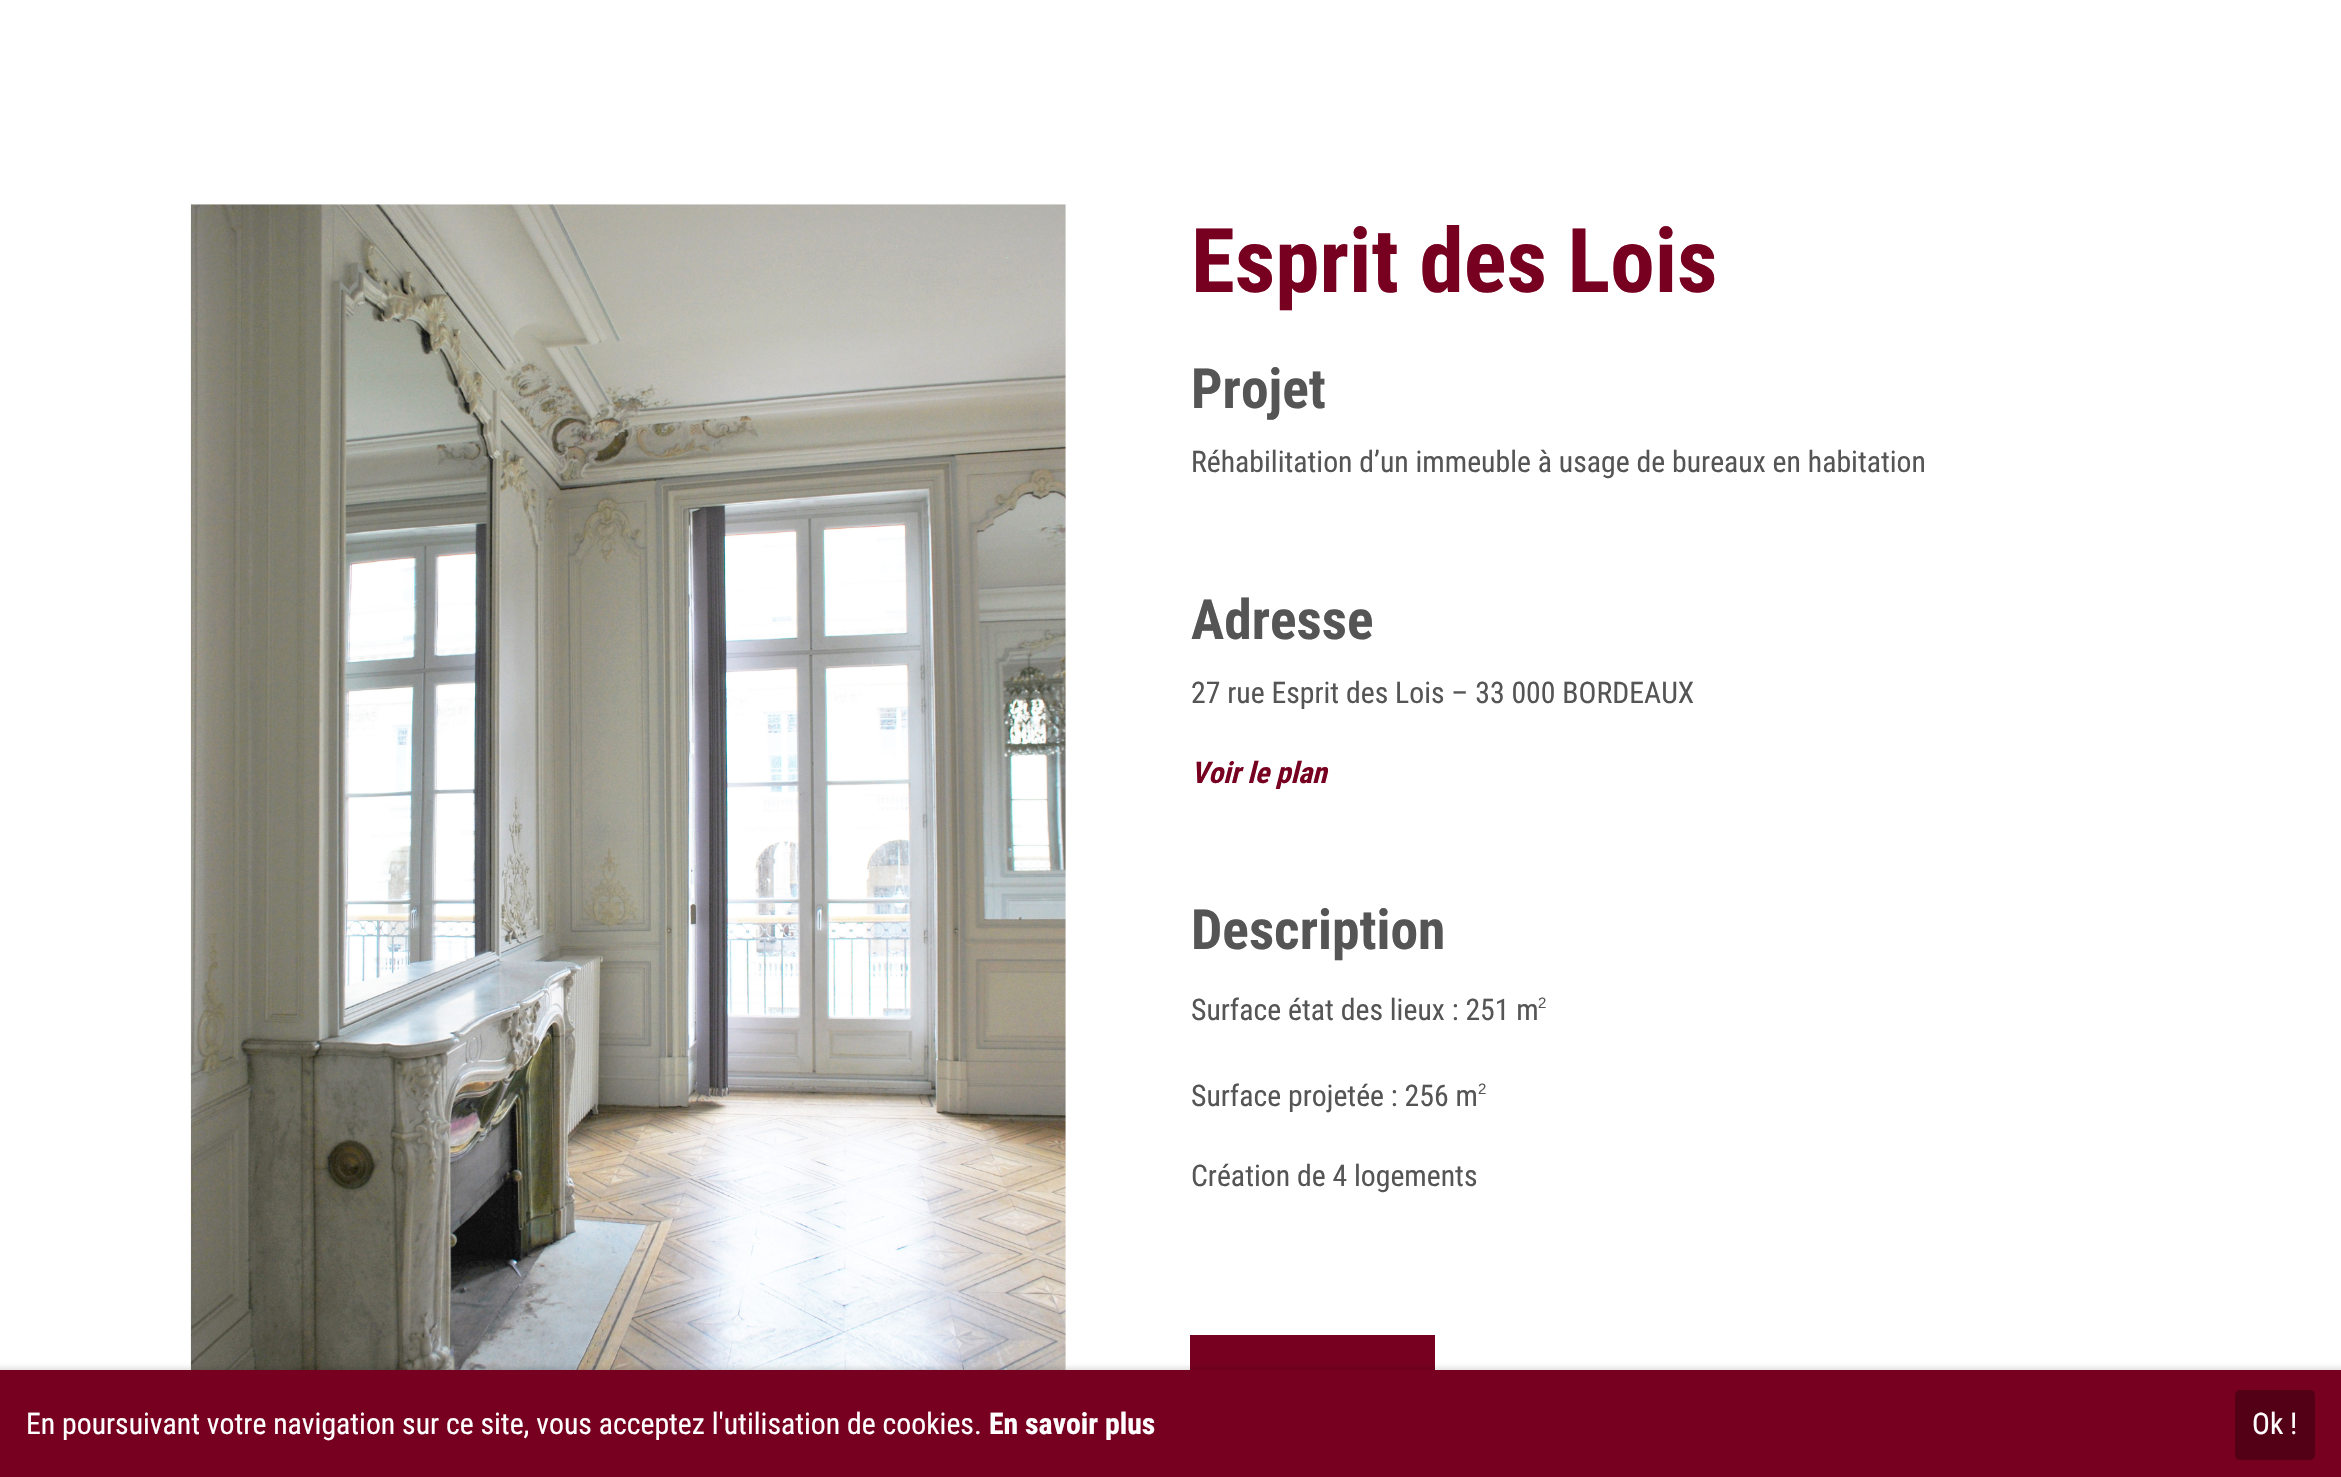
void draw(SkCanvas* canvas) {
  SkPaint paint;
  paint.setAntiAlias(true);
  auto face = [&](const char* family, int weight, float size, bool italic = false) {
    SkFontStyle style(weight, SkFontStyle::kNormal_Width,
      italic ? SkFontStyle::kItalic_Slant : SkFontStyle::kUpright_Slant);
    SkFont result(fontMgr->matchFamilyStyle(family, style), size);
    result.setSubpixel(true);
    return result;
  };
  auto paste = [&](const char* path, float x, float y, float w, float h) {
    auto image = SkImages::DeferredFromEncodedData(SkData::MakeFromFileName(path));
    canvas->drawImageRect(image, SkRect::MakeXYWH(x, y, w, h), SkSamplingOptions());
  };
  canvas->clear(0xffffffff);
  paste("img/1.png", 190, 204, 876, 1166);
  paint.setColor(0xff770021);
  canvas->drawRect(SkRect::MakeXYWH(1190, 1335, 245, 35), paint);
  paint.setColor(0x1a000000);
  paint.setMaskFilter(SkMaskFilter::MakeBlur(kNormal_SkBlurStyle, 2));
  canvas->drawRect(SkRect::MakeXYWH(-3, 1367, 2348, 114), paint);
  paint.setMaskFilter(nullptr);
  paint.setColor(0xff770021);
  canvas->drawRect(SkRect::MakeXYWH(0, 1370, 2341, 107), paint);
  paint.setColor(0xff530017);
  canvas->drawRoundRect(SkRect::MakeXYWH(2235, 1390, 80, 70), 5, 5, paint);
  auto f0 = face("Roboto Condensed", 700, 89.25f);
  paint.setColor(0xff770021);
  canvas->drawString("Esprit des Lois", 1191, 292, f0, paint);
  auto f1 = face("Roboto Condensed", 700, 55.5f);
  paint.setColor(0xff555555);
  canvas->drawString("Projet", 1191, 408, f1, paint);
  auto f2 = face("Roboto Condensed", 400, 29.75f);
  canvas->drawString("Réhabilitation d’un immeuble à usage de bureaux en habitation", 1191, 472, f2, paint);
  canvas->drawString("Adresse", 1191, 639, f1, paint);
  canvas->drawString("27 rue Esprit des Lois – 33 000 BORDEAUX", 1191, 703, f2, paint);
  auto f3 = face("Roboto Condensed", 700, 29.75f, true);
  paint.setColor(0xff770021);
  canvas->drawString("Voir le plan", 1191, 783, f3, paint);
  paint.setColor(0xff555555);
  canvas->drawString("Description", 1191, 949, f1, paint);
  canvas->drawString("Surface état des lieux : 251 m", 1191, 1020, f2, paint);
  auto f4 = face("Liberation Sans", 400, 15);
  canvas->drawString("2", 1538, 1008, f4, paint);
  canvas->drawString("Surface projetée : 256 m", 1191, 1106, f2, paint);
  canvas->drawString("2", 1478, 1094, f4, paint);
  canvas->drawString("Création de 4 logements", 1191, 1186, f2, paint);
  paint.setColor(0xffffffff);
  canvas->drawString("En poursuivant votre navigation sur ce site, vous acceptez l'utilisation de cookies.", 26, 1434, f2, paint);
  auto f5 = face("Roboto Condensed", 700, 29.75f);
  canvas->drawString("En savoir plus", 989, 1434, f5, paint);
  canvas->drawString("Ok !", 2252, 1434, f2, paint);
}
